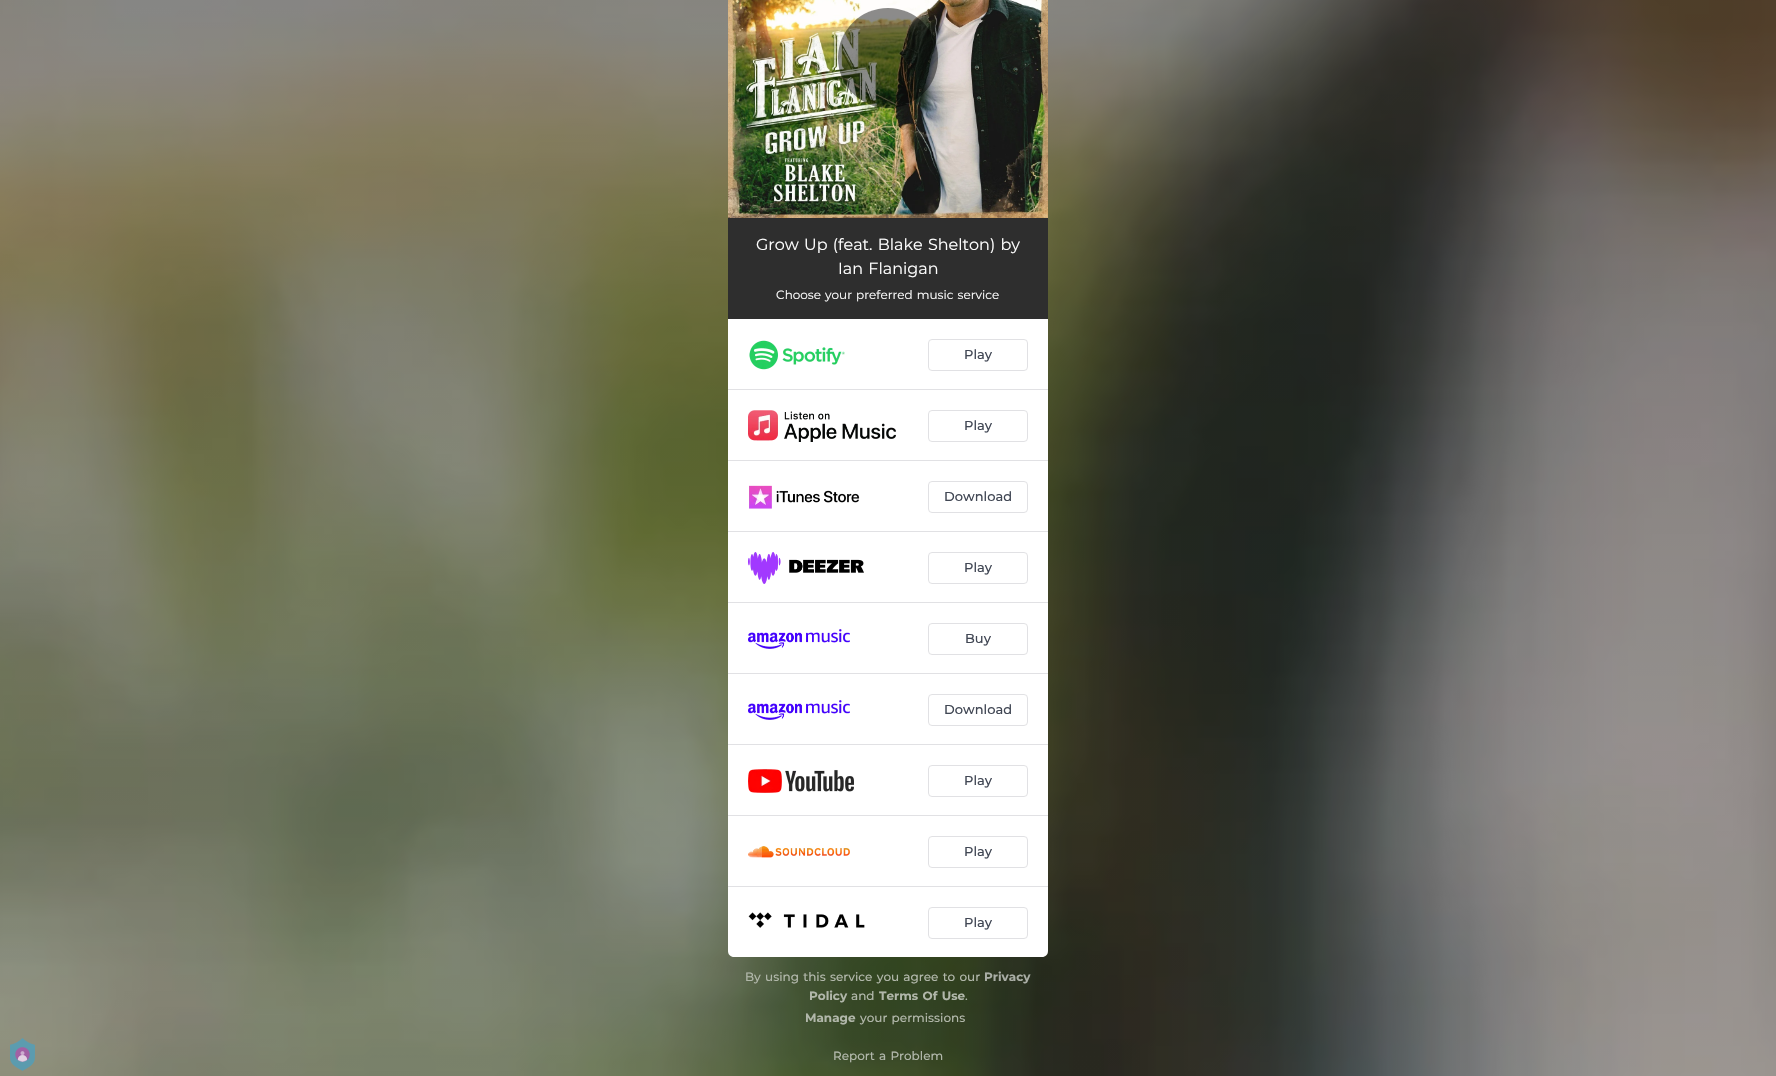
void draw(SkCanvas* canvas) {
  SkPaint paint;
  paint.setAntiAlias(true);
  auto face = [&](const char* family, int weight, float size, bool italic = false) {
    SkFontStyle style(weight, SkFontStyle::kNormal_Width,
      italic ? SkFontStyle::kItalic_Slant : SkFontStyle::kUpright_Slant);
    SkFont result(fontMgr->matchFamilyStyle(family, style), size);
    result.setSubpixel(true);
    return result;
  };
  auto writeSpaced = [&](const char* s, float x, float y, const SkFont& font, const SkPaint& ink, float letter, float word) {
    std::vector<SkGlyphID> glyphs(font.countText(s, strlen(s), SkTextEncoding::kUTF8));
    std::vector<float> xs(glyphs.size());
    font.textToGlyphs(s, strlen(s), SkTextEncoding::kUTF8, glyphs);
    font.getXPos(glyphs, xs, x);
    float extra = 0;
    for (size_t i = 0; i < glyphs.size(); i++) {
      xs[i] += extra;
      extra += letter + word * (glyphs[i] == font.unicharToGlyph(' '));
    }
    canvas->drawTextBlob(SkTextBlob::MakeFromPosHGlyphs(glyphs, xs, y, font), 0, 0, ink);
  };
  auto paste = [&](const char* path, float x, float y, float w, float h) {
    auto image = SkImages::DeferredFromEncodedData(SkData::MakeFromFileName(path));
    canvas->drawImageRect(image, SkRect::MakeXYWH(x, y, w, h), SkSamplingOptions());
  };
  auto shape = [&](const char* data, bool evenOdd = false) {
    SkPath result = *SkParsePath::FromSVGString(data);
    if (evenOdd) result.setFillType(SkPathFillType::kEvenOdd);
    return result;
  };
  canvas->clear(0xffffffff);
  paste("img/2.png", 0, 0, 1776, 1076);
  paste("img/1.png", 10, 1038, 25, 33);
  paste("img/3.png", 728, 0, 320, 218);
  paint.setColor(0x73000000);
  canvas->drawCircle(888, 58, 50, paint);
  paint.setColor(0xff2e2e2e);
  canvas->drawRect(SkRect::MakeXYWH(728, 218, 320, 101), paint);
  paint.setColor(0xffffffff);
  canvas->drawPath(shape("M728 319H1048V951C1048 954.5 1045.5 957 1042 957H734C730.5 957 728 954.5 728 951Z"), paint);
  paint.setColor(0xffe1e1e4);
  canvas->drawRect(SkRect::MakeXYWH(728, 389, 320, 1), paint);
  paste("img/4.png", 749, 340, 96, 30);
  paint.setStroke(true);
  paint.setStrokeWidth(1);
  canvas->drawRoundRect(SkRect::MakeXYWH(928.5f, 339.5f, 99, 31), 3.5f, 3.5f, paint);
  paint.setStroke(false);
  canvas->drawRect(SkRect::MakeXYWH(728, 460, 320, 1), paint);
  paste("img/5.png", 748, 410, 148, 32);
  paint.setStroke(true);
  canvas->drawRoundRect(SkRect::MakeXYWH(928.5f, 410.5f, 99, 31), 3.5f, 3.5f, paint);
  paint.setStroke(false);
  canvas->drawRect(SkRect::MakeXYWH(728, 531, 320, 1), paint);
  paste("img/6.png", 749, 485, 111, 24);
  paint.setStroke(true);
  canvas->drawRoundRect(SkRect::MakeXYWH(928.5f, 481.5f, 99, 31), 3.5f, 3.5f, paint);
  paint.setStroke(false);
  canvas->drawRect(SkRect::MakeXYWH(728, 602, 320, 1), paint);
  paste("img/7.png", 748, 552, 116, 32);
  paint.setStroke(true);
  canvas->drawRoundRect(SkRect::MakeXYWH(928.5f, 552.5f, 99, 31), 3.5f, 3.5f, paint);
  paint.setStroke(false);
  canvas->drawRect(SkRect::MakeXYWH(728, 673, 320, 1), paint);
  paste("img/8.png", 748, 629, 102, 20);
  paint.setStroke(true);
  canvas->drawRoundRect(SkRect::MakeXYWH(928.5f, 623.5f, 99, 31), 3.5f, 3.5f, paint);
  paint.setStroke(false);
  canvas->drawRect(SkRect::MakeXYWH(728, 744, 320, 1), paint);
  paste("img/8.png", 748, 700, 102, 20);
  paint.setStroke(true);
  canvas->drawRoundRect(SkRect::MakeXYWH(928.5f, 694.5f, 99, 31), 3.5f, 3.5f, paint);
  paint.setStroke(false);
  canvas->drawRect(SkRect::MakeXYWH(728, 815, 320, 1), paint);
  paste("img/9.png", 748, 769, 106, 24);
  paint.setStroke(true);
  canvas->drawRoundRect(SkRect::MakeXYWH(928.5f, 765.5f, 99, 31), 3.5f, 3.5f, paint);
  paint.setStroke(false);
  canvas->drawRect(SkRect::MakeXYWH(728, 886, 320, 1), paint);
  paste("img/10.png", 748, 846, 102, 12);
  paint.setStroke(true);
  canvas->drawRoundRect(SkRect::MakeXYWH(928.5f, 836.5f, 99, 31), 3.5f, 3.5f, paint);
  paste("img/11.png", 748, 912, 117, 16);
  canvas->drawRoundRect(SkRect::MakeXYWH(928.5f, 907.5f, 99, 31), 3.5f, 3.5f, paint);
  auto f0 = face("Montserrat", 400, 16);
  paint.setStroke(false);
  paint.setColor(0xffffffff);
  writeSpaced("Grow Up (feat. Blake Shelton) by", 756, 250, f0, paint, 0, 1);
  writeSpaced("Ian Flanigan", 838, 274, f0, paint, 0, 1);
  auto f1 = face("Montserrat", 400, 12);
  writeSpaced("Choose your preferred music service", 776, 299, f1, paint, 0, 1);
  auto f2 = face("Montserrat", 500, 13);
  paint.setColor(0xff414754);
  {
    const struct { const char* s; float x, y; } items[] = {
      {"Play", 964, 359},
      {"Play", 964, 430},
      {"Download", 944, 501},
      {"Play", 964, 572},
      {"Buy", 965, 643},
      {"Download", 944, 714},
      {"Play", 964, 785},
      {"Play", 964, 856},
      {"Play", 964, 927},
    };
    for (auto [s, x, y] : items) {
      canvas->drawString(s, x, y, f2, paint);
    }
  }
  auto f3 = face("Montserrat", 500, 12);
  paint.setColor(0xffb1b7aa);
  writeSpaced("By using this service you agree to our", 745, 981, f3, paint, 0, 1);
  auto f4 = face("Montserrat", 700, 12);
  paint.setColor(0xffaaaea6);
  canvas->drawString("Privacy", 984, 981, f4, paint);
  paint.setColor(0xffb1b7aa);
  canvas->drawString("Policy", 809, 1000, f4, paint);
  canvas->drawString("and", 851, 1000, f3, paint);
  writeSpaced("Terms Of Use", 879, 1000, f4, paint, 0, 1);
  canvas->drawString(".", 965, 1000, f3, paint);
  canvas->drawString("Manage", 805, 1022, f4, paint);
  writeSpaced("your permissions", 860, 1022, f3, paint, 0, 1);
  writeSpaced("Report a Problem", 833, 1060, f3, paint, 0, 1);
}
